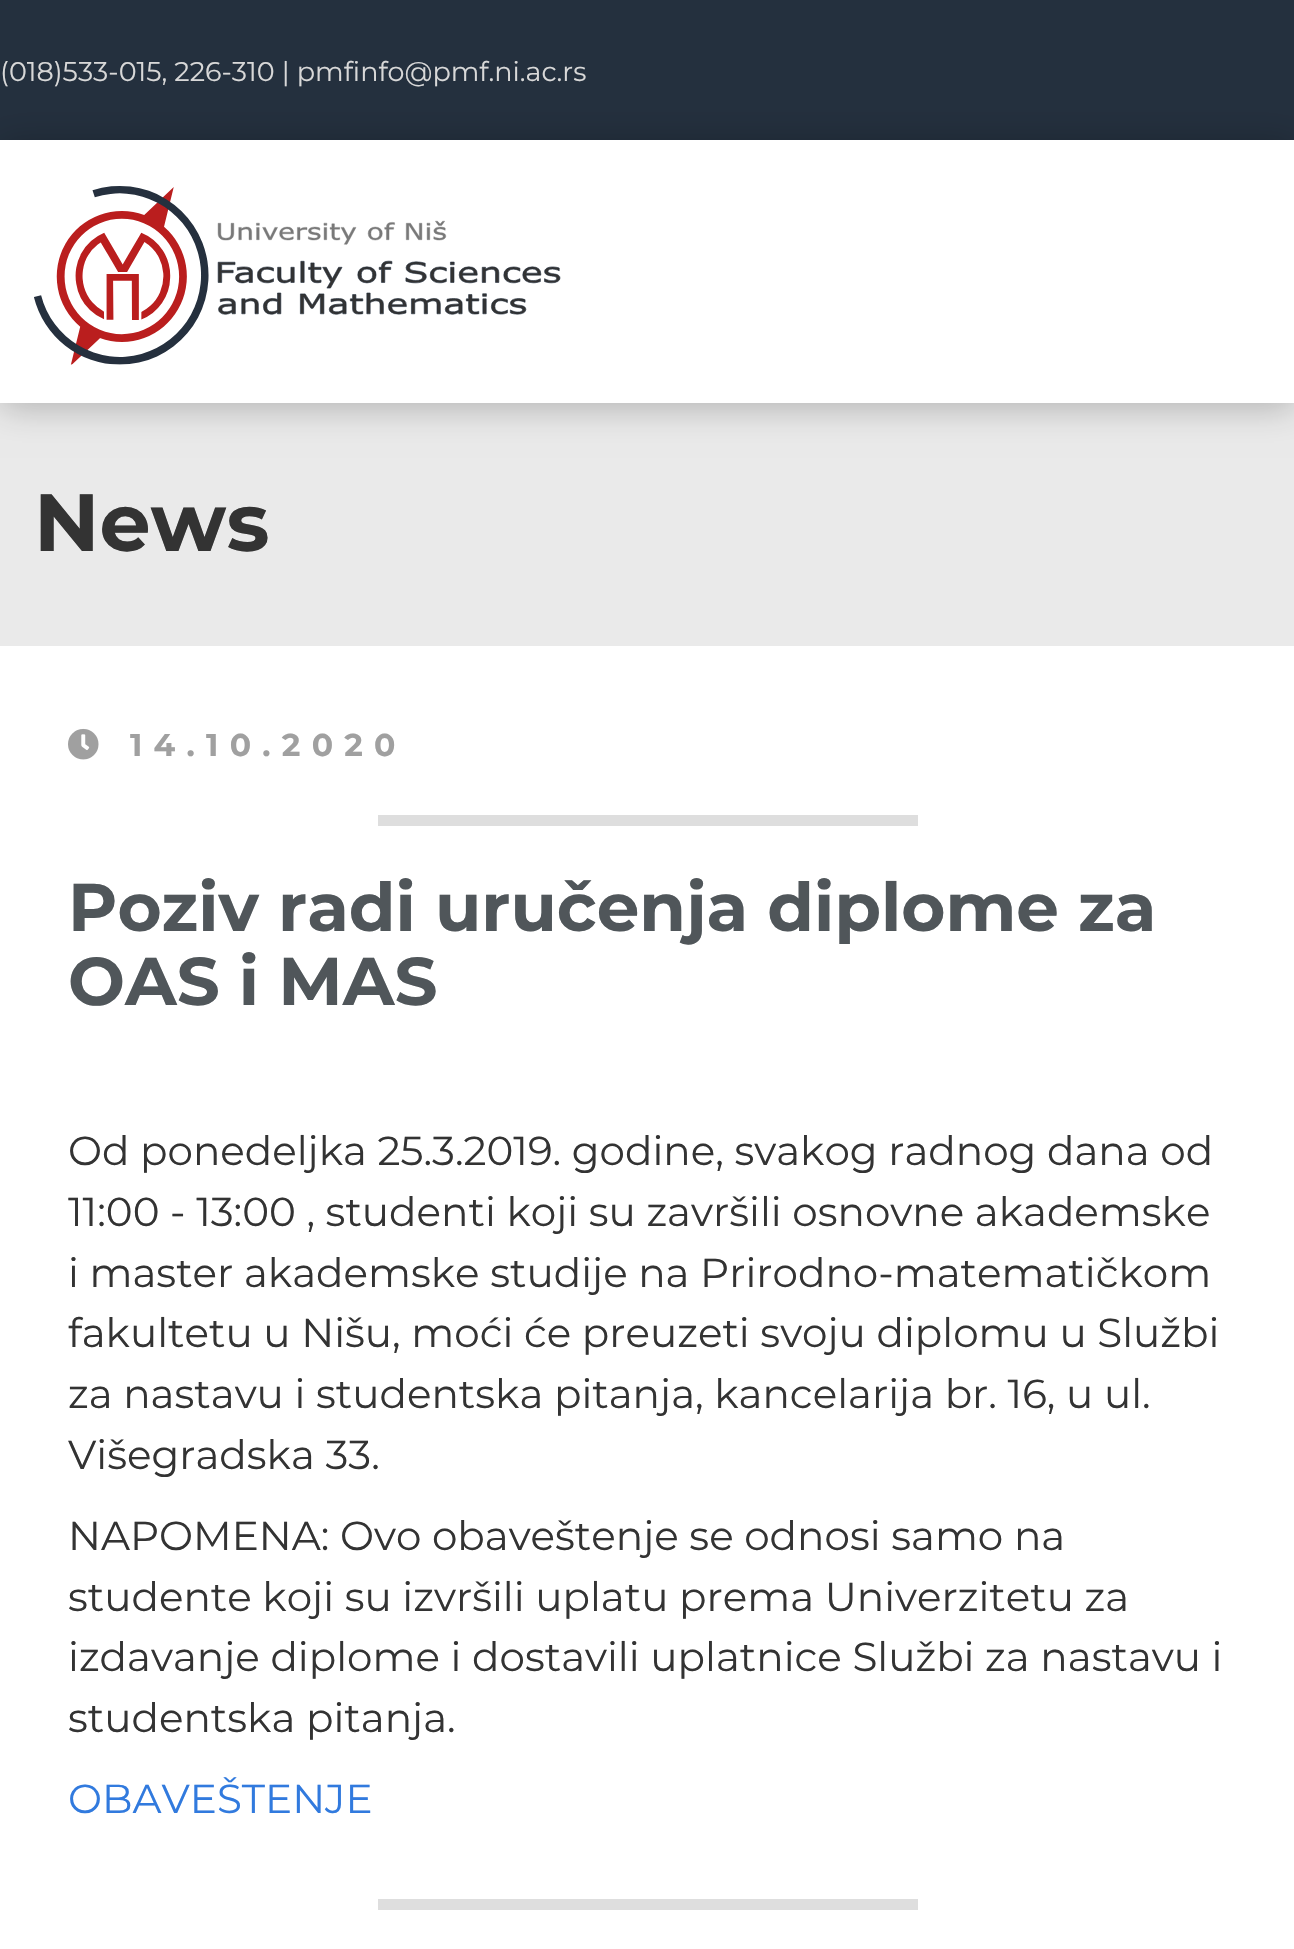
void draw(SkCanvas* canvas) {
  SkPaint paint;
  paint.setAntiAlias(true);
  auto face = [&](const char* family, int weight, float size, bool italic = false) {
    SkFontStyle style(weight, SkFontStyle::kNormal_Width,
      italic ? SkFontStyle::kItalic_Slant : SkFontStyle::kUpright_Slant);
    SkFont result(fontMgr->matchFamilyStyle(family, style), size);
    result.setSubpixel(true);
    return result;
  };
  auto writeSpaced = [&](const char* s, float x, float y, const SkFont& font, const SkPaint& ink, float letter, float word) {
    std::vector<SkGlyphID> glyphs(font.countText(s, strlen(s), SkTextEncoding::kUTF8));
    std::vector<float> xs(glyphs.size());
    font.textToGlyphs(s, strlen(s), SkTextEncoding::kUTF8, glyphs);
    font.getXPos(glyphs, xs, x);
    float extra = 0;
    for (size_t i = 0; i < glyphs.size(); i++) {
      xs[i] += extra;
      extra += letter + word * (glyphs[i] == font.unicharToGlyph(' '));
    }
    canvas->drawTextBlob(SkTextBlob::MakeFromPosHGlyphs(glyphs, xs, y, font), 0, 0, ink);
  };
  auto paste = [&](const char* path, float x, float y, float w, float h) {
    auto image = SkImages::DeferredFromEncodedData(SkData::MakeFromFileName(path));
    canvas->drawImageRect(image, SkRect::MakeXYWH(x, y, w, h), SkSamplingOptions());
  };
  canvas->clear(0xffffffff);
  paint.setColor(0xff24303e);
  canvas->drawRect(SkRect::MakeXYWH(0, 0, 1294, 140), paint);
  paint.setColor(0xffeaeaea);
  canvas->drawRect(SkRect::MakeXYWH(0, 403, 1294, 243), paint);
  paint.setColor(0x40000000);
  paint.setMaskFilter(SkMaskFilter::MakeBlur(kNormal_SkBlurStyle, 17));
  canvas->drawRect(SkRect::MakeXYWH(0, 144, 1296, 263), paint);
  paint.setMaskFilter(nullptr);
  paint.setColor(0xffffffff);
  canvas->drawRect(SkRect::MakeXYWH(0, 140, 1294, 263), paint);
  paste("img/1.png", 34, 186, 527, 179);
  paste("img/2.png", 68, 728, 31, 32);
  paint.setColor(0xffdedede);
  canvas->drawRect(SkRect::MakeXYWH(378, 815, 540, 11), paint);
  canvas->drawRect(SkRect::MakeXYWH(378, 1899, 540, 11), paint);
  auto f0 = face("Montserrat", 400, 27);
  paint.setColor(0xffd8d8d8);
  canvas->drawString("(018)533-015, 226-310 | pmfinfo@pmf.ni.ac.rs", 0, 81, f0, paint);
  auto f1 = face("Montserrat", 700, 81);
  paint.setColor(0xff333333);
  canvas->drawString("News", 34, 551, f1, paint);
  auto f2 = face("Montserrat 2", 700, 31.5f);
  paint.setColor(0xffa0a0a0);
  writeSpaced("14.10.2020", 130, 756, f2, paint, 11.25f, 0);
  auto f3 = face("Montserrat", 700, 67.5f);
  paint.setColor(0xff50565a);
  canvas->drawString("Poziv radi uručenja diplome za", 68, 931, f3, paint);
  canvas->drawString("OAS i MAS", 68, 1005, f3, paint);
  auto f4 = face("Montserrat", 400, 40.5f);
  paint.setColor(0xff333333);
  {
    const struct { const char* s; float x, y; } items[] = {
      {"Od ponedeljka 25.3.2019. godine, svakog radnog dana od", 68, 1165},
      {"11:00 - 13:00 , studenti koji su završili osnovne akademske", 68, 1226},
      {"i master akademske studije na Prirodno-matematičkom", 68, 1287},
      {"fakultetu u Nišu, moći će preuzeti svoju diplomu u Službi", 68, 1347},
      {"za nastavu i studentska pitanja, kancelarija br. 16, u ul.", 68, 1408},
      {"Višegradska 33.", 68, 1469},
      {"NAPOMENA: Ovo obaveštenje se odnosi samo na", 68, 1550},
      {"studente koji su izvršili uplatu prema Univerzitetu za", 68, 1611},
      {"izdavanje diplome i dostavili uplatnice Službi za nastavu i", 68, 1671},
      {"studentska pitanja.", 68, 1732},
    };
    for (auto [s, x, y] : items) {
      canvas->drawString(s, x, y, f4, paint);
    }
  }
  paint.setColor(0xff317ade);
  canvas->drawString("OBAVEŠTENJE", 68, 1813, f4, paint);
}
